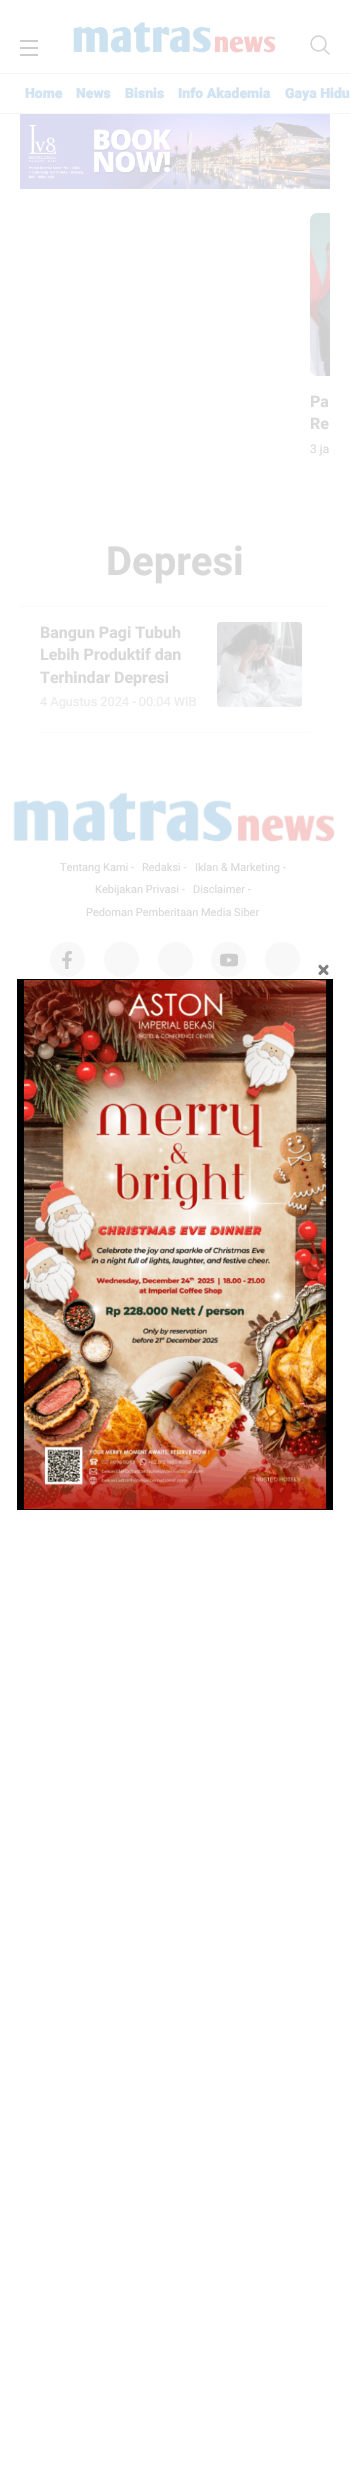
void draw(SkCanvas* canvas) {
  SkPaint paint;
  paint.setAntiAlias(true);
  auto face = [&](const char* family, int weight, float size, bool italic = false) {
    SkFontStyle style(weight, SkFontStyle::kNormal_Width,
      italic ? SkFontStyle::kItalic_Slant : SkFontStyle::kUpright_Slant);
    SkFont result(fontMgr->matchFamilyStyle(family, style), size);
    result.setSubpixel(true);
    return result;
  };
  auto paste = [&](const char* path, float x, float y, float w, float h) {
    auto image = SkImages::DeferredFromEncodedData(SkData::MakeFromFileName(path));
    canvas->drawImageRect(image, SkRect::MakeXYWH(x, y, w, h), SkSamplingOptions());
  };
  auto shape = [&](const char* data, bool evenOdd = false) {
    SkPath result = *SkParsePath::FromSVGString(data);
    if (evenOdd) result.setFillType(SkPathFillType::kEvenOdd);
    return result;
  };
  canvas->clear(0xffffffff);
  {
    const struct { float x, y, w, h; SkColor color; } items[] = {
      {20, 40, 18, 2, 0xffcccccc},
      {20, 47, 18, 2, 0xffcccccc},
      {20, 54, 18, 2, 0xffcccccc},
    };
    for (auto [x, y, w, h, color] : items) {
      paint.setColor(color);
      canvas->drawRect(SkRect::MakeXYWH(x, y, w, h), paint);
    }
  }
  paste("img/1.png", 73, 21, 204, 32);
  paint.setStroke(true);
  paint.setStrokeWidth(1.6f);
  paint.setColor(0xffd3d3d3);
  canvas->drawCircle(318.5f, 43.5f, 7.5f, paint);
  paint.setStrokeCap(SkPaint::kRound_Cap);
  paint.setStrokeJoin(SkPaint::kRound_Join);
  canvas->drawPath(shape("M329 54L324 49"), paint);
  paint.setStroke(false);
  paint.setColor(0xfff5f5f5);
  canvas->drawRect(SkRect::MakeXYWH(0, 73, 350, 1), paint);
  canvas->drawRect(SkRect::MakeXYWH(0, 113, 350, 1), paint);
  paste("img/2.png", 20, 114, 310, 75);
  paste("img/3.png", 310, 213, 20, 163);
  paint.setColor(0xfffafafa);
  canvas->drawRect(SkRect::MakeXYWH(20, 606, 310, 1), paint);
  canvas->drawRect(SkRect::MakeXYWH(40, 732, 270, 1), paint);
  paste("img/4.png", 217, 622, 85, 85);
  paste("img/5.png", 13, 790, 324, 53);
  paint.setColor(0xfff8f8f8);
  canvas->drawCircle(67.5f, 959.5f, 17.5f, paint);
  paste("img/6.png", 62, 951, 10, 18);
  canvas->drawCircle(121.5f, 959.5f, 17.5f, paint);
  canvas->drawCircle(175.5f, 959.5f, 17.5f, paint);
  canvas->drawCircle(228.5f, 959.5f, 17.5f, paint);
  paste("img/7.png", 220, 953, 18, 14);
  canvas->drawCircle(282.5f, 959.5f, 17.5f, paint);
  paste("img/8.png", 318, 964, 11, 11);
  paint.setColor(0xff000000);
  canvas->drawRect(SkRect::MakeXYWH(17, 979, 316, 531), paint);
  paste("img/9.png", 23, 980, 304, 529);
  auto f0 = face("Heebo", 900, 14);
  paint.setColor(0xffd2e3f2);
  {
    const struct { const char* s; float x, y; } items[] = {
      {"Home", 25, 98},
      {"News", 76, 98},
      {"Bisnis", 125, 98},
      {"Info Akademia", 178, 98},
      {"Gaya Hidu", 285, 98},
    };
    for (auto [s, x, y] : items) {
      canvas->drawString(s, x, y, f0, paint);
    }
  }
  auto f1 = face("Heebo", 700, 16);
  paint.setColor(0xffd9d9d9);
  canvas->drawString("Pa", 310, 407, f1, paint);
  canvas->drawString("Re", 310, 429, f1, paint);
  auto f2 = face("Heebo", 400, 12);
  canvas->drawString("3 ja", 310, 453, f2, paint);
  auto f3 = face("Heebo", 700, 40);
  canvas->drawString("Depresi", 106, 575, f3, paint);
  {
    const struct { const char* s; float x, y; } items[] = {
      {"Bangun Pagi Tubuh", 40, 638},
      {"Lebih Produktif dan", 40, 660},
      {"Terhindar Depresi", 40, 683},
    };
    for (auto [s, x, y] : items) {
      canvas->drawString(s, x, y, f1, paint);
    }
  }
  auto f4 = face("Heebo", 400, 12.75f);
  paint.setColor(0xffebebeb);
  canvas->drawString("4 Agustus 2024 - 00:04 WIB", 40, 706, f4, paint);
  auto f5 = face("Heebo", 400, 11);
  paint.setColor(0xffd9d9d9);
  {
    const struct { const char* s; float x, y; } items[] = {
      {"Tentang Kami -", 60, 871},
      {"Redaksi -", 142, 871},
      {"Iklan & Marketing -", 195, 871},
      {"Kebijakan Privasi -", 95, 893},
      {"Disclaimer -", 193, 893},
      {"Pedoman Pemberitaan Media Siber", 86, 916},
    };
    for (auto [s, x, y] : items) {
      canvas->drawString(s, x, y, f5, paint);
    }
  }
}
